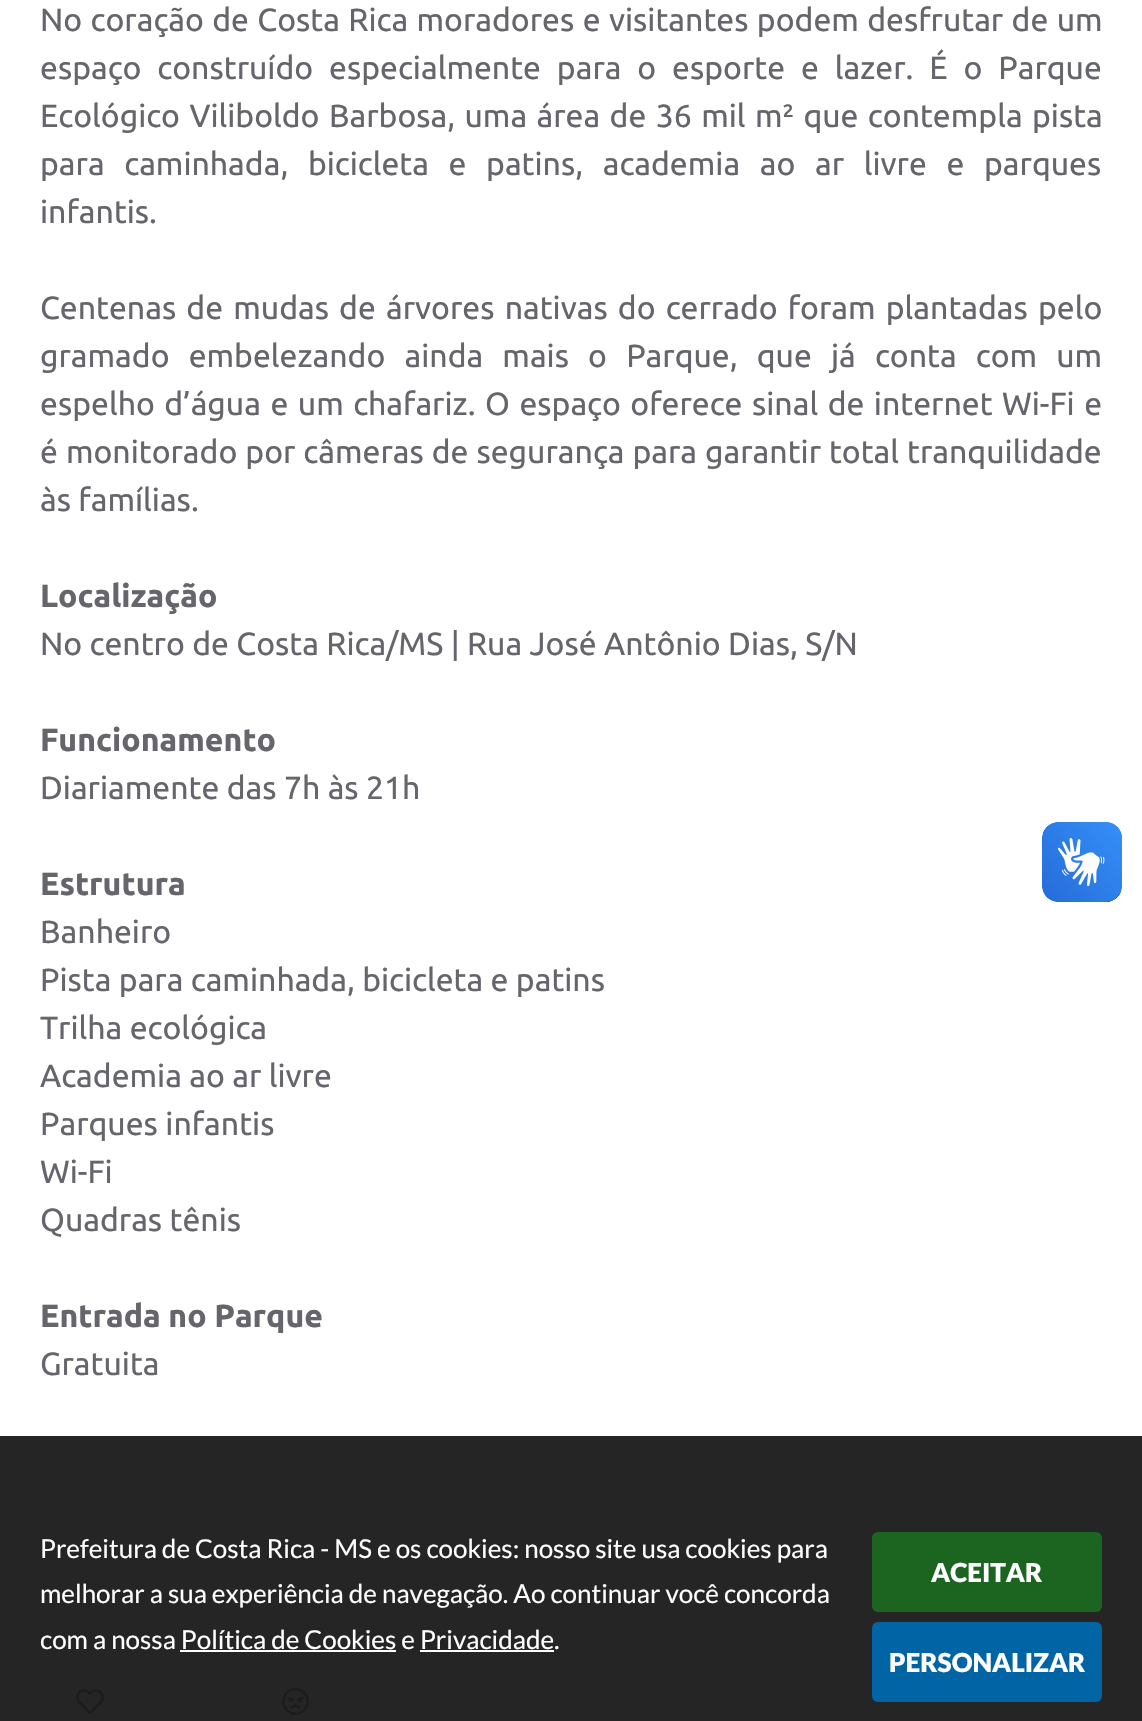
void draw(SkCanvas* canvas) {
  SkPaint paint;
  paint.setAntiAlias(true);
  auto face = [&](const char* family, int weight, float size, bool italic = false) {
    SkFontStyle style(weight, SkFontStyle::kNormal_Width,
      italic ? SkFontStyle::kItalic_Slant : SkFontStyle::kUpright_Slant);
    SkFont result(fontMgr->matchFamilyStyle(family, style), size);
    result.setSubpixel(true);
    return result;
  };
  auto writeSpaced = [&](const char* s, float x, float y, const SkFont& font, const SkPaint& ink, float letter, float word) {
    std::vector<SkGlyphID> glyphs(font.countText(s, strlen(s), SkTextEncoding::kUTF8));
    std::vector<float> xs(glyphs.size());
    font.textToGlyphs(s, strlen(s), SkTextEncoding::kUTF8, glyphs);
    font.getXPos(glyphs, xs, x);
    float extra = 0;
    for (size_t i = 0; i < glyphs.size(); i++) {
      xs[i] += extra;
      extra += letter + word * (glyphs[i] == font.unicharToGlyph(' '));
    }
    canvas->drawTextBlob(SkTextBlob::MakeFromPosHGlyphs(glyphs, xs, y, font), 0, 0, ink);
  };
  auto paste = [&](const char* path, float x, float y, float w, float h) {
    auto image = SkImages::DeferredFromEncodedData(SkData::MakeFromFileName(path));
    canvas->drawImageRect(image, SkRect::MakeXYWH(x, y, w, h), SkSamplingOptions());
  };
  canvas->clear(0xffffffff);
  paint.setColor(0xff252525);
  canvas->drawRect(SkRect::MakeXYWH(0, 1436, 1142, 285), paint);
  paste("img/1.png", 76, 1689, 29, 25);
  paste("img/2.png", 282, 1687, 28, 29);
  paste("img/3.png", 1042, 822, 80, 80);
  paste("img/4.png", 1042, 822, 80, 80);
  paint.setColor(0xffffffff);
  canvas->drawRect(SkRect::MakeXYWH(180, 1650, 216, 2), paint);
  canvas->drawRect(SkRect::MakeXYWH(420, 1650, 134, 2), paint);
  paint.setColor(0xff1b6520);
  canvas->drawRoundRect(SkRect::MakeXYWH(872, 1532, 230, 80), 6, 6, paint);
  paint.setColor(0xff0164a4);
  canvas->drawRoundRect(SkRect::MakeXYWH(872, 1622, 230, 80), 6, 6, paint);
  auto f0 = face("Ubuntu", 400, 32);
  paint.setColor(0xff65656b);
  writeSpaced("No coração de Costa Rica moradores e visitantes podem desfrutar de um", 40, 31, f0, paint, 0, 1);
  writeSpaced("espaço construído especialmente para o esporte e lazer. É o Parque", 40, 79, f0, paint, 0, 8.5f);
  writeSpaced("Ecológico Viliboldo Barbosa, uma área de 36 mil m² que contempla pista", 40, 127, f0, paint, 0, 2);
  writeSpaced("para caminhada, bicicleta e patins, academia ao ar livre e parques", 40, 175, f0, paint, 0, 12.25f);
  canvas->drawString("infantis.", 40, 223, f0, paint);
  writeSpaced("Centenas de mudas de árvores nativas do cerrado foram plantadas pelo", 40, 319, f0, paint, 0, 2.75f);
  writeSpaced("gramado embelezando ainda mais o Parque, que já conta com um", 40, 367, f0, paint, 0, 11.75f);
  writeSpaced("espelho d’água e um chafariz. O espaço oferece sinal de internet Wi-Fi e", 40, 415, f0, paint, 0, 2.1f);
  writeSpaced("é monitorado por câmeras de segurança para garantir total tranquilidade", 40, 463, f0, paint, 0, 0.6f);
  canvas->drawString("às famílias.", 40, 511, f0, paint);
  auto f1 = face("Ubuntu", 700, 32);
  canvas->drawString("Localização", 40, 607, f1, paint);
  canvas->drawString("No centro de Costa Rica/MS | Rua José Antônio Dias, S/N", 40, 655, f0, paint);
  canvas->drawString("Funcionamento", 40, 751, f1, paint);
  canvas->drawString("Diariamente das 7h às 21h", 40, 799, f0, paint);
  canvas->drawString("Estrutura", 40, 895, f1, paint);
  {
    const struct { const char* s; float x, y; } items[] = {
      {"Banheiro", 40, 943},
      {"Pista para caminhada, bicicleta e patins", 40, 991},
      {"Trilha ecológica", 40, 1039},
      {"Academia ao ar livre", 40, 1087},
      {"Parques infantis", 40, 1135},
      {"Wi-Fi", 40, 1183},
      {"Quadras tênis", 40, 1231},
    };
    for (auto [s, x, y] : items) {
      canvas->drawString(s, x, y, f0, paint);
    }
  }
  canvas->drawString("Entrada no Parque", 40, 1327, f1, paint);
  canvas->drawString("Gratuita", 40, 1375, f0, paint);
  auto f2 = face("Lato", 400, 26);
  paint.setColor(0xffffffff);
  {
    const struct { const char* s; float x, y; } items[] = {
      {"Prefeitura de Costa Rica - MS e os cookies: nosso site usa cookies para", 40, 1558},
      {"melhorar a sua experiência de navegação. Ao continuar você concorda", 40, 1603},
      {"com a nossa Política de Cookies e Privacidade.", 40, 1649},
    };
    for (auto [s, x, y] : items) {
      canvas->drawString(s, x, y, f2, paint);
    }
  }
  auto f3 = face("Lato", 900, 26);
  canvas->drawString("ACEITAR", 931, 1582, f3, paint);
  canvas->drawString("PERSONALIZAR", 889, 1672, f3, paint);
}
